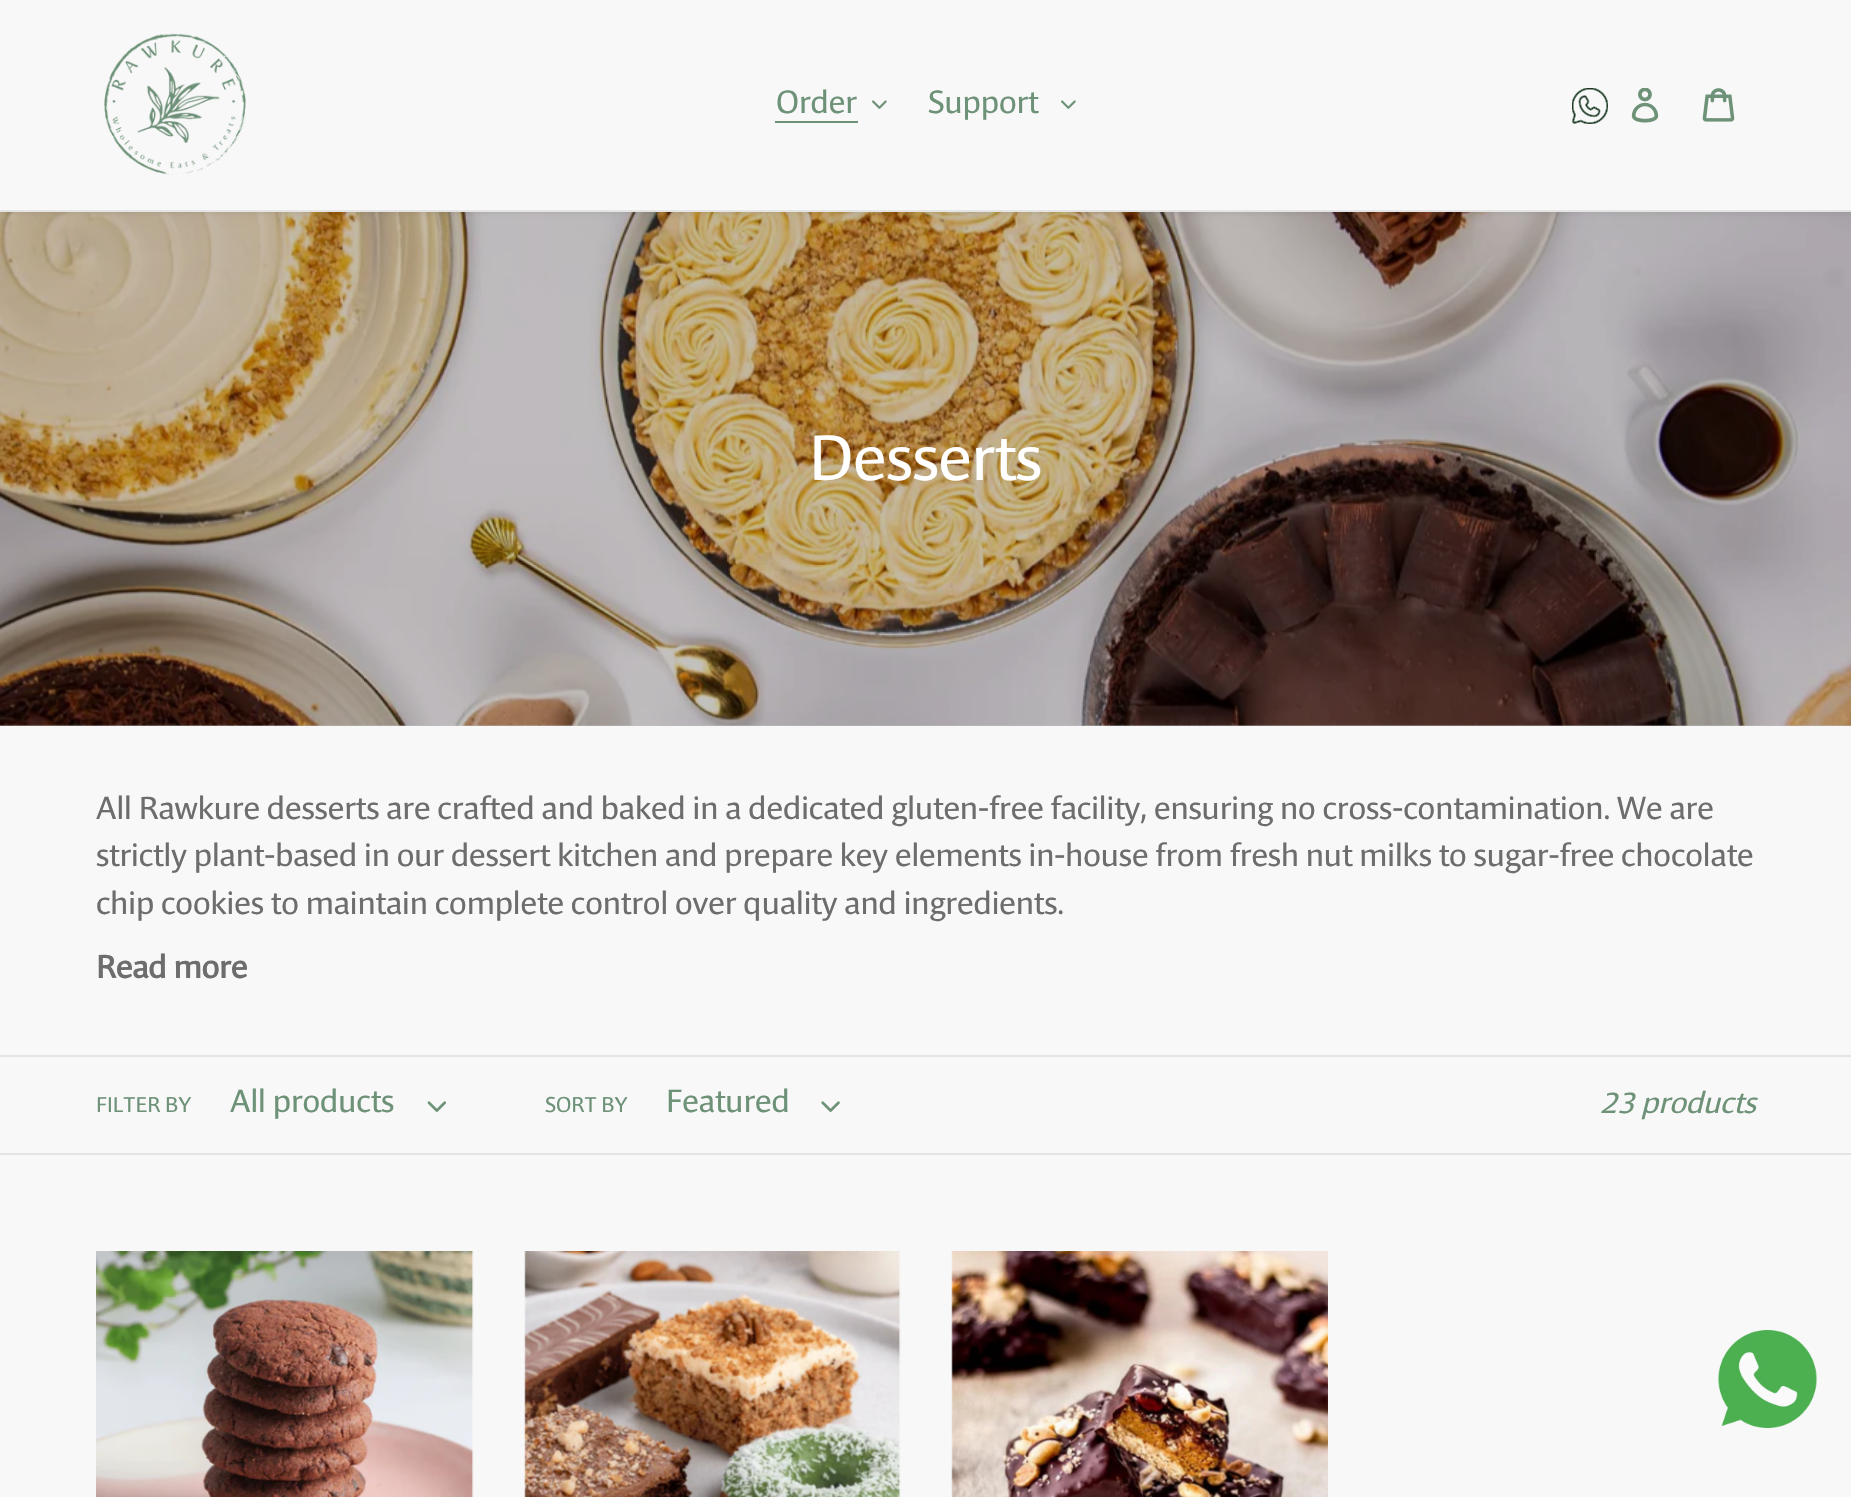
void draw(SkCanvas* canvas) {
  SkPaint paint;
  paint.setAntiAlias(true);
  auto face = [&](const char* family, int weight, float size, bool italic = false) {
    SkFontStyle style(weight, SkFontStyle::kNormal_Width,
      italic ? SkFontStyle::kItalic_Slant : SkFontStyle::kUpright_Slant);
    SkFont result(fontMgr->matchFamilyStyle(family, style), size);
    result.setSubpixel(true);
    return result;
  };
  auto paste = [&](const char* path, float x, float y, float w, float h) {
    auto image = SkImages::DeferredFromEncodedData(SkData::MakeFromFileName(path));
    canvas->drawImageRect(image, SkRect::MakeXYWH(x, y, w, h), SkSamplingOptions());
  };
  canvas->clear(0xfff8f8f8);
  paint.setColor(0xffbfbdbd);
  canvas->drawRect(SkRect::MakeXYWH(0, 724, 1851, 2), paint);
  paste("img/6.png", 0, 212, 1851, 514);
  paint.setColor(0x0f000000);
  paint.setMaskFilter(SkMaskFilter::MakeBlur(kNormal_SkBlurStyle, 2));
  canvas->drawRect(SkRect::MakeXYWH(0, 2, 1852, 212), paint);
  paint.setMaskFilter(nullptr);
  paint.setColor(0xfff8f8f8);
  canvas->drawRect(SkRect::MakeXYWH(0, 0, 1851, 210), paint);
  paint.setColor(0xffe4e4e4);
  canvas->drawRect(SkRect::MakeXYWH(0, 210, 1851, 2), paint);
  paste("img/1.png", 104, 33, 142, 143);
  paint.setColor(0xff6e9278);
  canvas->drawRect(SkRect::MakeXYWH(775, 121, 83, 2), paint);
  paste("img/2.png", 872, 100, 15, 9);
  paste("img/2.png", 1061, 100, 15, 9);
  paste("img/3.png", 1572, 88, 36, 36);
  paste("img/4.png", 1631, 88, 28, 35);
  paste("img/5.png", 1702, 88, 33, 34);
  paint.setColor(0xffe4e4e4);
  canvas->drawRect(SkRect::MakeXYWH(0, 1055, 1851, 2), paint);
  canvas->drawRect(SkRect::MakeXYWH(0, 1153, 1851, 2), paint);
  paste("img/7.png", 427, 1101, 19, 11);
  paste("img/8.png", 821, 1101, 19, 11);
  paste("img/9.png", 96, 1251, 378, 246);
  paste("img/10.png", 524, 1251, 377, 246);
  paste("img/11.png", 951, 1251, 377, 246);
  paste("img/12.png", 1718, 1330, 99, 98);
  auto f0 = face("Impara", 400, 31.5f);
  paint.setColor(0xff6e9278);
  canvas->drawString("Order", 776, 113, f0, paint);
  canvas->drawString("Support", 928, 113, f0, paint);
  auto f1 = face("Impara", 400, 63);
  paint.setColor(0xffffffff);
  canvas->drawString("Desserts", 809, 480, f1, paint);
  paint.setColor(0xff6d6d6d);
  {
    const struct { const char* s; float x, y; } items[] = {
      {"All Rawkure desserts are crafted and baked in a dedicated gluten-free facility, ensuring no cross-contamination. We are", 96, 819},
      {"strictly plant-based in our dessert kitchen and prepare key elements in-house from fresh nut milks to sugar-free chocolate", 96, 866},
      {"chip cookies to maintain complete control over quality and ingredients.", 96, 914},
    };
    for (auto [s, x, y] : items) {
      canvas->drawString(s, x, y, f0, paint);
    }
  }
  auto f2 = face("Impara", 700, 31.5f);
  canvas->drawString("Read more", 96, 978, f2, paint);
  auto f3 = face("Impara", 400, 21);
  paint.setColor(0xff6e9278);
  canvas->drawString("FILTER BY", 96, 1112, f3, paint);
  canvas->drawString("All products", 230, 1112, f0, paint);
  canvas->drawString("SORT BY", 545, 1112, f3, paint);
  canvas->drawString("Featured", 666, 1112, f0, paint);
  auto f4 = face("Impara", 400, 29.75f, true);
  canvas->drawString("23 products", 1600, 1113, f4, paint);
}
